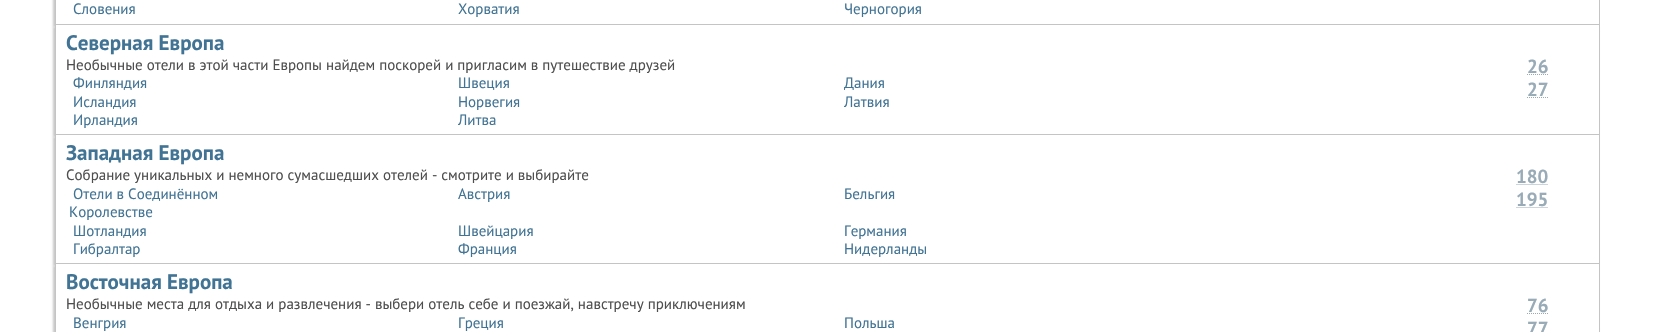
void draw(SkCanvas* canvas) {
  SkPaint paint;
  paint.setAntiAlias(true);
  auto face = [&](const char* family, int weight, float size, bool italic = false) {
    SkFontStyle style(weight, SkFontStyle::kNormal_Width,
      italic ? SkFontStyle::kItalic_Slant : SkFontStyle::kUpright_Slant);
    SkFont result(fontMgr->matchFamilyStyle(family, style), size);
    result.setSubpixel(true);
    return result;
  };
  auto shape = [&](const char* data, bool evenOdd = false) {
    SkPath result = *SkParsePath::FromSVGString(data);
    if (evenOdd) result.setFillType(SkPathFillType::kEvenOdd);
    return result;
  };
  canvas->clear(0xffffffff);
  canvas->save();
  canvas->clipRect(SkRect::MakeXYWH(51, 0, 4, 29));
  paint.setColor(0xffc8c8c8);
  paint.setMaskFilter(SkMaskFilter::MakeBlur(kNormal_SkBlurStyle, 1));
  canvas->drawRect(SkRect::MakeXYWH(53, -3, 1545, 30), paint);
  paint.setMaskFilter(nullptr);
  canvas->restore();
  {
    const struct { float x, y, w, h; SkColor color; } items[] = {
      {1599, 0, 1, 25, 0xffc4c4c4},
      {55, 24, 1545, 1, 0xffc4c4c4},
      {55, 0, 1, 25, 0xffc4c4c4},
    };
    for (auto [x, y, w, h, color] : items) {
      paint.setColor(color);
      canvas->drawRect(SkRect::MakeXYWH(x, y, w, h), paint);
    }
  }
  paint.setColor(0xffc8c8c8);
  paint.setMaskFilter(SkMaskFilter::MakeBlur(kNormal_SkBlurStyle, 1));
  canvas->drawRect(SkRect::MakeXYWH(53, 27, 1545, 110), paint);
  paint.setMaskFilter(nullptr);
  {
    const struct { float x, y, w, h; SkColor color; } items[] = {
      {56, 25, 1543, 109, 0xffffffff},
      {1599, 25, 1, 110, 0xffc4c4c4},
      {55, 134, 1545, 1, 0xffc4c4c4},
      {55, 25, 1, 110, 0xffc4c4c4},
    };
    for (auto [x, y, w, h, color] : items) {
      paint.setColor(color);
      canvas->drawRect(SkRect::MakeXYWH(x, y, w, h), paint);
    }
  }
  paint.setStroke(true);
  paint.setStrokeWidth(1);
  paint.setColor(0xff99abb7);
  paint.setPathEffect(SkDashPathEffect::Make({{1, 1}}, 0));
  canvas->drawPath(shape("M1527 74.5H1548"), paint);
  paint.setPathEffect(nullptr);
  paint.setPathEffect(SkDashPathEffect::Make({{1, 1}}, 0));
  canvas->drawPath(shape("M1527 97.5H1548"), paint);
  paint.setPathEffect(nullptr);
  paint.setStroke(false);
  paint.setColor(0xffc8c8c8);
  paint.setMaskFilter(SkMaskFilter::MakeBlur(kNormal_SkBlurStyle, 1));
  canvas->drawRect(SkRect::MakeXYWH(53, 137, 1545, 129), paint);
  paint.setMaskFilter(nullptr);
  {
    const struct { float x, y, w, h; SkColor color; } items[] = {
      {56, 135, 1543, 128, 0xffffffff},
      {1599, 135, 1, 129, 0xffc4c4c4},
      {55, 263, 1545, 1, 0xffc4c4c4},
      {55, 135, 1, 129, 0xffc4c4c4},
    };
    for (auto [x, y, w, h, color] : items) {
      paint.setColor(color);
      canvas->drawRect(SkRect::MakeXYWH(x, y, w, h), paint);
    }
  }
  paint.setStroke(true);
  paint.setColor(0xff99abb7);
  paint.setPathEffect(SkDashPathEffect::Make({{1, 1}}, 0));
  canvas->drawPath(shape("M1516.5 184.5H1548"), paint);
  paint.setPathEffect(nullptr);
  paint.setPathEffect(SkDashPathEffect::Make({{1, 1}}, 0));
  canvas->drawPath(shape("M1516.5 207.5H1548"), paint);
  paint.setPathEffect(nullptr);
  paint.setStroke(false);
  paint.setColor(0xffc8c8c8);
  paint.setMaskFilter(SkMaskFilter::MakeBlur(kNormal_SkBlurStyle, 1));
  canvas->drawRect(SkRect::MakeXYWH(53, 266, 1545, 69), paint);
  paint.setMaskFilter(nullptr);
  {
    const struct { float x, y, w, h; SkColor color; } items[] = {
      {56, 264, 1543, 68, 0xffffffff},
      {1599, 264, 1, 68, 0xffc4c4c4},
      {55, 264, 1, 68, 0xffc4c4c4},
    };
    for (auto [x, y, w, h, color] : items) {
      paint.setColor(color);
      canvas->drawRect(SkRect::MakeXYWH(x, y, w, h), paint);
    }
  }
  paint.setStroke(true);
  paint.setColor(0xff99abb7);
  paint.setPathEffect(SkDashPathEffect::Make({{1, 1}}, 0));
  canvas->drawPath(shape("M1527 313.5H1548"), paint);
  paint.setPathEffect(nullptr);
  auto f0 = face("PT Sans", 400, 15);
  paint.setStroke(false);
  paint.setColor(0xff417394);
  {
    const struct { const char* s; float x, y; } items[] = {
      {"Словения", 73, 14},
      {"Хорватия", 458, 14},
      {"Черногория", 844, 14},
    };
    for (auto [s, x, y] : items) {
      canvas->drawString(s, x, y, f0, paint);
    }
  }
  auto f1 = face("PT Sans", 700, 21);
  canvas->drawString("Северная Европа", 66, 50, f1, paint);
  paint.setColor(0xff4e4e4e);
  canvas->drawString("Необычные отели в этой части Европы найдем поскорей и пригласим в путешествие друзей", 66, 70, f0, paint);
  paint.setColor(0xff417394);
  {
    const struct { const char* s; float x, y; } items[] = {
      {"Финляндия", 73, 88},
      {"Швеция", 458, 88},
      {"Дания", 844, 88},
      {"Исландия", 73, 107},
      {"Норвегия", 458, 107},
      {"Латвия", 844, 107},
      {"Ирландия", 73, 125},
      {"Литва", 458, 125},
    };
    for (auto [s, x, y] : items) {
      canvas->drawString(s, x, y, f0, paint);
    }
  }
  auto f2 = face("PT Sans", 700, 19);
  paint.setColor(0xff99abb7);
  canvas->drawString("26", 1527, 73, f2, paint);
  canvas->drawString("27", 1527, 96, f2, paint);
  paint.setColor(0xff417394);
  canvas->drawString("Западная Европа", 66, 160, f1, paint);
  paint.setColor(0xff4e4e4e);
  canvas->drawString("Собрание уникальных и немного сумасшедших отелей - смотрите и выбирайте", 66, 180, f0, paint);
  paint.setColor(0xff417394);
  {
    const struct { const char* s; float x, y; } items[] = {
      {"Отели в Соединённом", 73, 199},
      {"Королевстве", 69, 217},
      {"Австрия", 458, 199},
      {"Бельгия", 844, 199},
      {"Шотландия", 73, 236},
      {"Швейцария", 458, 236},
      {"Германия", 844, 236},
      {"Гибралтар", 73, 254},
      {"Франция", 458, 254},
      {"Нидерланды", 844, 254},
    };
    for (auto [s, x, y] : items) {
      canvas->drawString(s, x, y, f0, paint);
    }
  }
  paint.setColor(0xff99abb7);
  canvas->drawString("180", 1516, 183, f2, paint);
  canvas->drawString("195", 1516, 206, f2, paint);
  paint.setColor(0xff417394);
  canvas->drawString("Восточная Европа", 66, 289, f1, paint);
  paint.setColor(0xff4e4e4e);
  canvas->drawString("Необычные места для отдыха и развлечения - выбери отель себе и поезжай, навстречу приключениям", 66, 309, f0, paint);
  paint.setColor(0xff417394);
  {
    const struct { const char* s; float x, y; } items[] = {
      {"Венгрия", 73, 328},
      {"Греция", 458, 328},
      {"Польша", 844, 328},
    };
    for (auto [s, x, y] : items) {
      canvas->drawString(s, x, y, f0, paint);
    }
  }
  paint.setColor(0xff99abb7);
  canvas->drawString("76", 1527, 312, f2, paint);
  canvas->drawString("77", 1527, 335, f2, paint);
}
